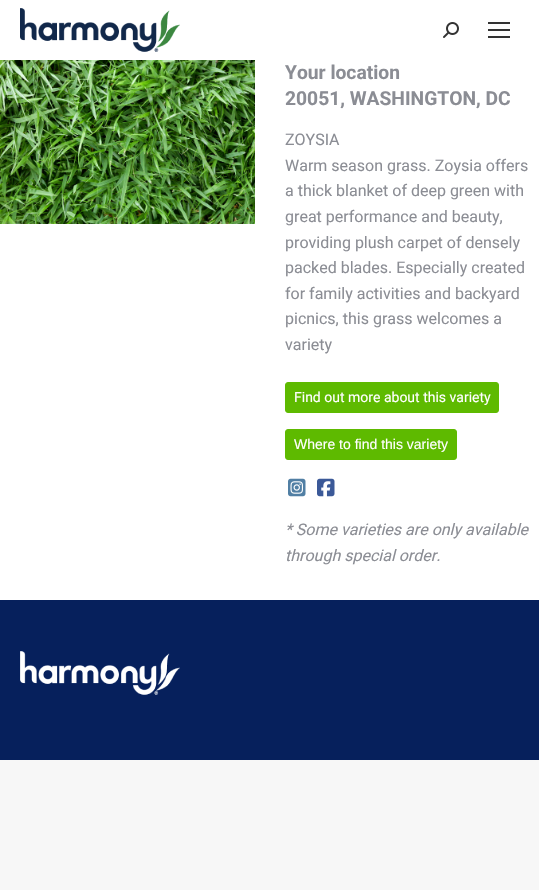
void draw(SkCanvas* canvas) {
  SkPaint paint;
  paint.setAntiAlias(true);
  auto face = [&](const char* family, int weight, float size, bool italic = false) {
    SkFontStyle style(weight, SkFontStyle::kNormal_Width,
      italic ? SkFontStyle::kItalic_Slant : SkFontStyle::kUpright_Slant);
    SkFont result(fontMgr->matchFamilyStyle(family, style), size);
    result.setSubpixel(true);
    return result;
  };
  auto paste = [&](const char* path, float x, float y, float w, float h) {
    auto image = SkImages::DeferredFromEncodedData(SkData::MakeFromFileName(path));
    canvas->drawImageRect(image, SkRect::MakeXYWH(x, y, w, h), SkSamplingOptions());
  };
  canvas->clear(0xfff7f7f7);
  paint.setColor(0xffffffff);
  canvas->drawRect(SkRect::MakeXYWH(0, 0, 539, 600), paint);
  paste("img/1.png", 20, 8, 160, 44);
  paste("img/2.png", 443, 22, 16, 16);
  {
    const struct { float x, y, w, h; SkColor color; } items[] = {
      {488, 22, 22, 2, 0xff333333},
      {488, 29, 22, 2, 0xff333333},
      {488, 36, 22, 2, 0xff333333},
    };
    for (auto [x, y, w, h, color] : items) {
      paint.setColor(color);
      canvas->drawRect(SkRect::MakeXYWH(x, y, w, h), paint);
    }
  }
  paste("img/3.png", 0, 60, 255, 164);
  paint.setColor(0xff5eba00);
  canvas->drawRoundRect(SkRect::MakeXYWH(285.5f, 382.5f, 213, 30), 2.5f, 2.5f, paint);
  paint.setStroke(true);
  paint.setStrokeWidth(1);
  canvas->drawRoundRect(SkRect::MakeXYWH(285.5f, 382.5f, 213, 30), 2.5f, 2.5f, paint);
  paint.setStroke(false);
  canvas->drawRoundRect(SkRect::MakeXYWH(285.5f, 429.5f, 171, 30), 2.5f, 2.5f, paint);
  paint.setStroke(true);
  canvas->drawRoundRect(SkRect::MakeXYWH(285.5f, 429.5f, 171, 30), 2.5f, 2.5f, paint);
  paste("img/4.png", 288, 478, 18, 19);
  paste("img/5.png", 317, 478, 18, 19);
  paint.setStroke(false);
  paint.setColor(0xff06205c);
  canvas->drawRect(SkRect::MakeXYWH(0, 600, 539, 160), paint);
  paste("img/6.png", 20, 651, 160, 44);
  auto f0 = face("Roboto", 700, 19.25f);
  paint.setColor(0xff8b8d94);
  canvas->drawString("Your location", 285, 79, f0, paint);
  canvas->drawString("20051, WASHINGTON, DC", 285, 105, f0, paint);
  auto f1 = face("Roboto", 400, 16);
  {
    const struct { const char* s; float x, y; } items[] = {
      {"ZOYSIA", 285, 145},
      {"Warm season grass. Zoysia offers", 285, 171},
      {"a thick blanket of deep green with", 285, 196},
      {"great performance and beauty,", 285, 222},
      {"providing plush carpet of densely", 285, 248},
      {"packed blades. Especially created", 285, 273},
      {"for family activities and backyard", 285, 299},
      {"picnics, this grass welcomes a", 285, 324},
      {"variety", 285, 350},
    };
    for (auto [s, x, y] : items) {
      canvas->drawString(s, x, y, f1, paint);
    }
  }
  auto f2 = face("Roboto", 400, 14);
  paint.setColor(0xffffffff);
  canvas->drawString("Find out more about this variety", 294, 402, f2, paint);
  auto f3 = face("Liberation Sans", 400, 14);
  canvas->drawString("Where to find this variety", 294, 449, f3, paint);
  auto f4 = face("Roboto", 400, 16, true);
  paint.setColor(0xff8b8d94);
  canvas->drawString("* Some varieties are only available", 285, 535, f4, paint);
  canvas->drawString("through special order.", 285, 561, f4, paint);
}
